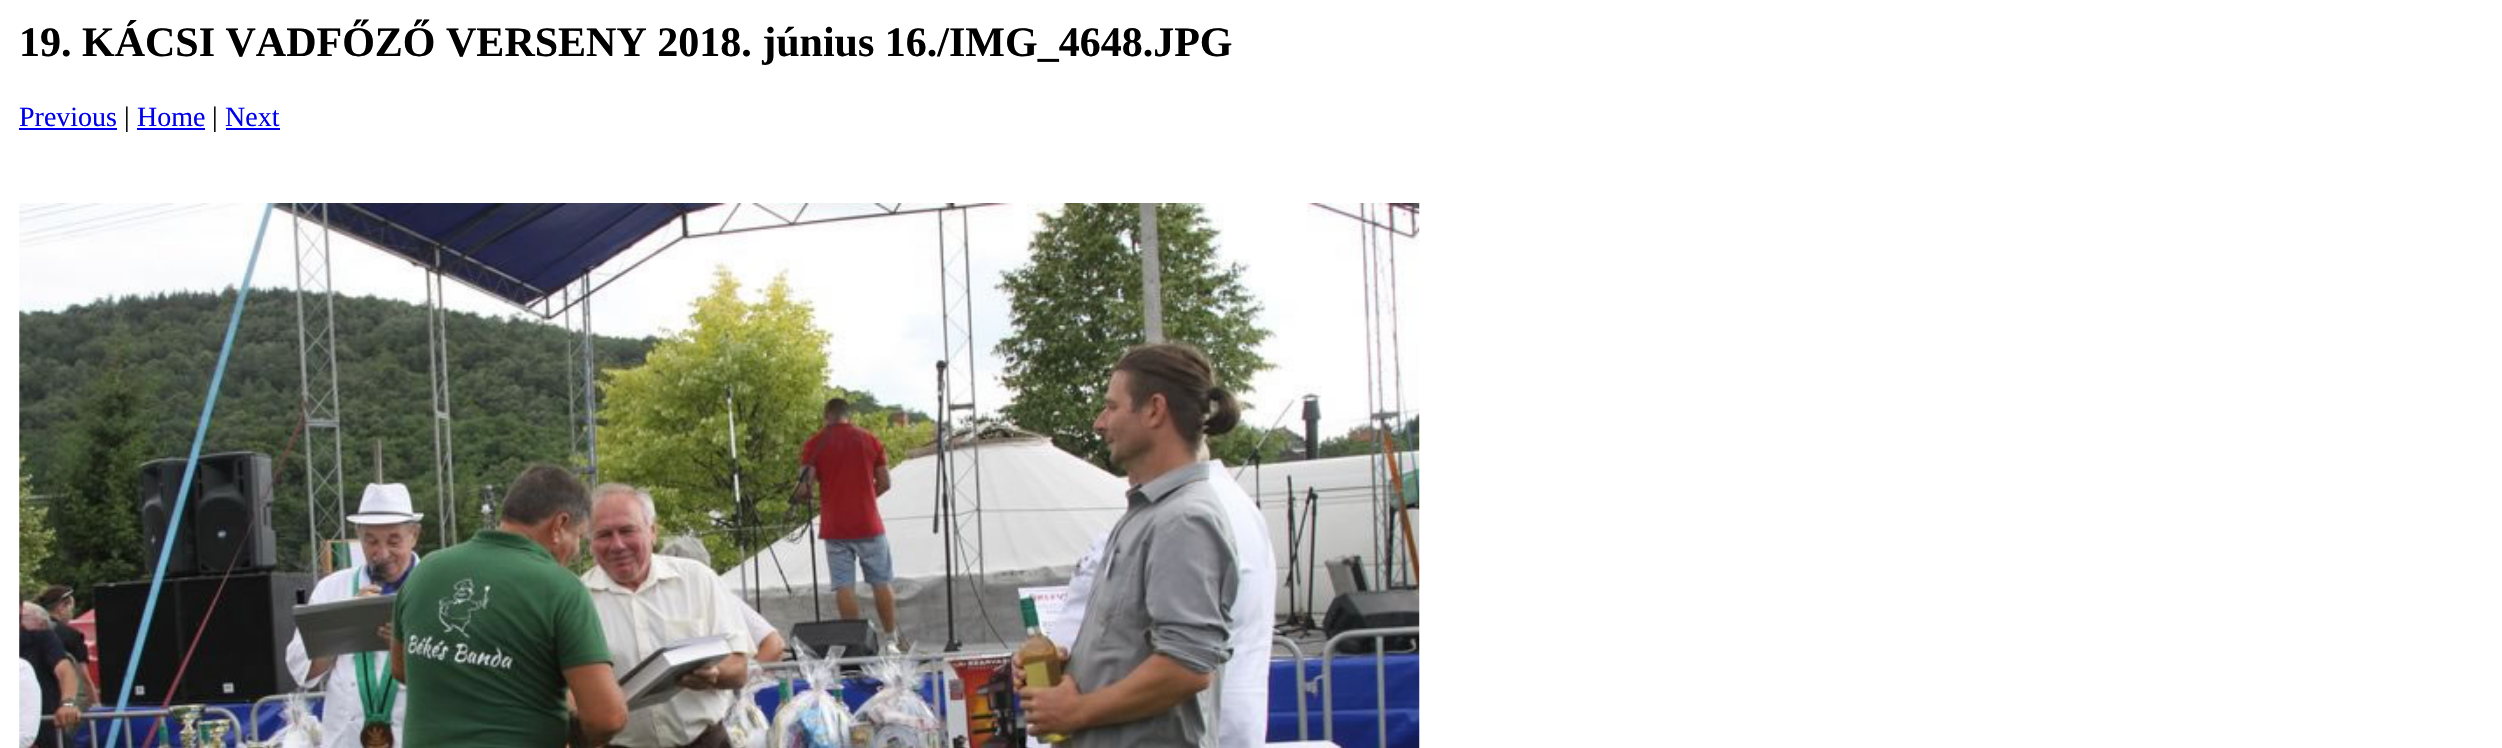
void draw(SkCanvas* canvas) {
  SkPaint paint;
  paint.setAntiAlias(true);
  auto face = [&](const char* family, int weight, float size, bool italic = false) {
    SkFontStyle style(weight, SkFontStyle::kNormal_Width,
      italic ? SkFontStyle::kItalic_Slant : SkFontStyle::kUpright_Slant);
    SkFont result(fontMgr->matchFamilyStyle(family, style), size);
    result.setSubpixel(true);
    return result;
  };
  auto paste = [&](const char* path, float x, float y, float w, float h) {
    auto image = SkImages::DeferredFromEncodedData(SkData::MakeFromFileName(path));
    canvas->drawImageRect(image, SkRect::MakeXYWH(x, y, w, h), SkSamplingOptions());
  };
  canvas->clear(0xffffffff);
  {
    const struct { float x, y, w, h; SkColor color; } items[] = {
      {19, 128, 98, 2, 0xff0000ee},
      {137, 128, 68, 2, 0xff0000ee},
      {226, 128, 54, 2, 0xff0000ee},
    };
    for (auto [x, y, w, h, color] : items) {
      paint.setColor(color);
      canvas->drawRect(SkRect::MakeXYWH(x, y, w, h), paint);
    }
  }
  paste("img/1.png", 19, 203, 1401, 545);
  auto f0 = face("Liberation Serif", 700, 42);
  paint.setColor(0xff000000);
  canvas->drawString("19. KÁCSI VADFŐZŐ VERSENY 2018. június 16./IMG_4648.JPG", 19, 56, f0, paint);
  auto f1 = face("Liberation Serif", 400, 28);
  paint.setColor(0xff0000ee);
  canvas->drawString("Previous", 19, 126, f1, paint);
  paint.setColor(0xff000000);
  canvas->drawString("|", 124, 126, f1, paint);
  paint.setColor(0xff0000ee);
  canvas->drawString("Home", 137, 126, f1, paint);
  paint.setColor(0xff000000);
  canvas->drawString("|", 212, 126, f1, paint);
  paint.setColor(0xff0000ee);
  canvas->drawString("Next", 225, 126, f1, paint);
}
